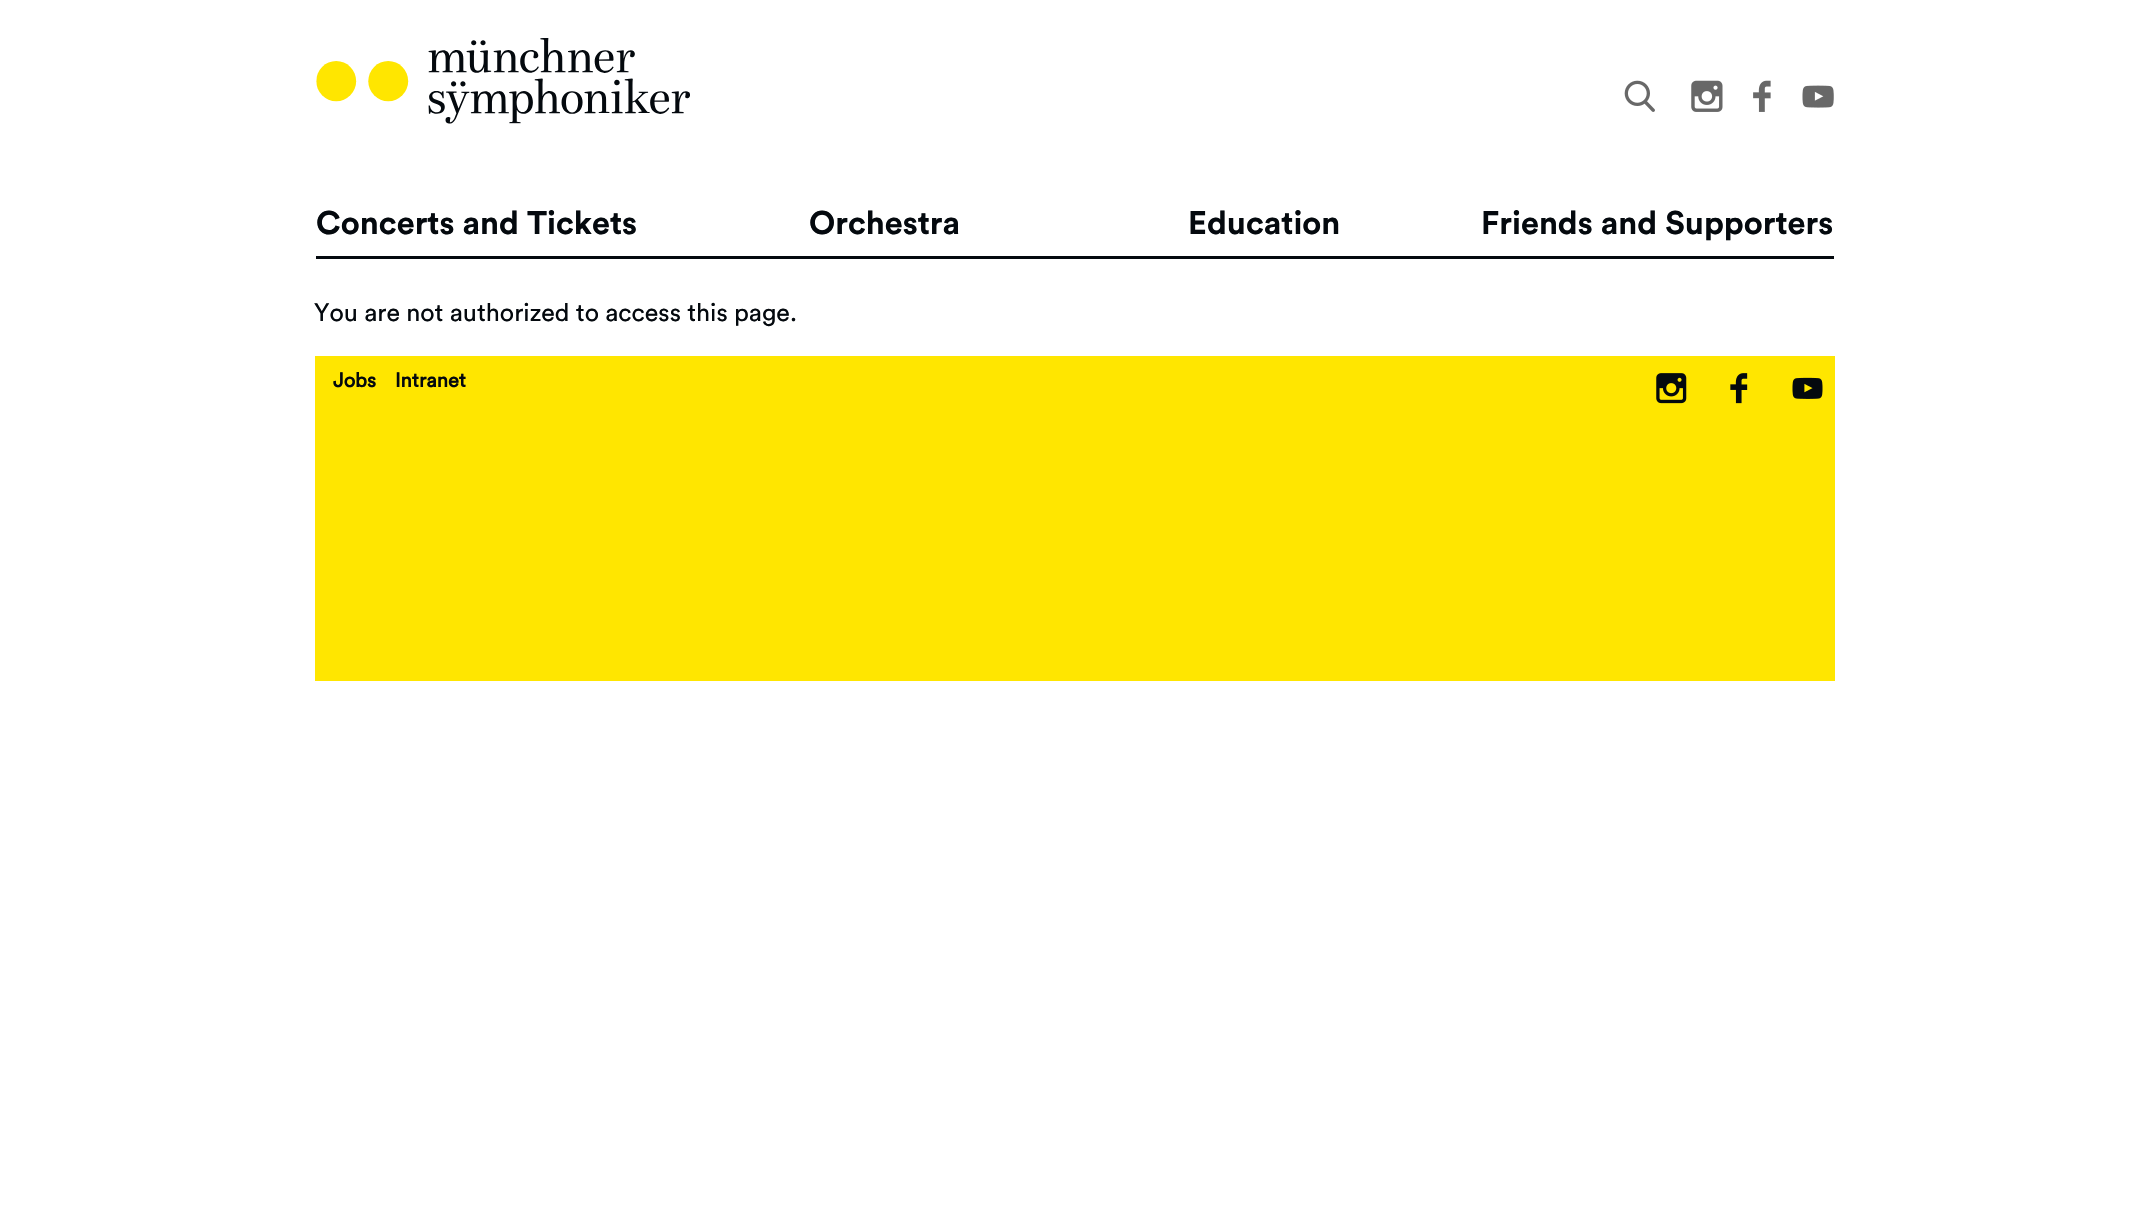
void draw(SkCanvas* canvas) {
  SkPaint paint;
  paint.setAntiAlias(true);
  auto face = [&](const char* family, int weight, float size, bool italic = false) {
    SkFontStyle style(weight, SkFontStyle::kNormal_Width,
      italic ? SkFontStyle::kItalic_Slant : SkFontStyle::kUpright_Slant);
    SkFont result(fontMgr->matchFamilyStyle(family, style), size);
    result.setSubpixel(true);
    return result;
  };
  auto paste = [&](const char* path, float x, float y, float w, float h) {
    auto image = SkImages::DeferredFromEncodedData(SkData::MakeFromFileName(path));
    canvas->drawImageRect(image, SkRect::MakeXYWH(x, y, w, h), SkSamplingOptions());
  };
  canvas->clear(0xffffffff);
  paste("img/1.png", 316, 38, 374, 86);
  paste("img/2.png", 1624, 80, 31, 32);
  paste("img/3.png", 1691, 80, 32, 32);
  paste("img/4.png", 1753, 80, 18, 32);
  paste("img/5.png", 1802, 85, 32, 23);
  paint.setColor(0xff04090e);
  canvas->drawRect(SkRect::MakeXYWH(316, 256, 1518, 3), paint);
  paint.setColor(0xffffe600);
  canvas->drawRect(SkRect::MakeXYWH(315, 356, 1520, 325), paint);
  paste("img/6.png", 1656, 373, 31, 31);
  paste("img/7.png", 1730, 373, 18, 31);
  paste("img/8.png", 1792, 377, 31, 22);
  auto f0 = face("Circular", 700, 32.5f);
  paint.setColor(0xff04090e);
  {
    const struct { const char* s; float x, y; } items[] = {
      {"Concerts and Tickets", 316, 234},
      {"Orchestra", 809, 234},
      {"Education", 1188, 234},
      {"Friends and Supporters", 1481, 234},
    };
    for (auto [s, x, y] : items) {
      canvas->drawString(s, x, y, f0, paint);
    }
  }
  auto f1 = face("Circular", 400, 25);
  canvas->drawString("You are not authorized to access this page.", 314, 321, f1, paint);
  auto f2 = face("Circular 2", 700, 20);
  canvas->drawString("Jobs", 333, 387, f2, paint);
  canvas->drawString("Intranet", 395, 387, f2, paint);
}
